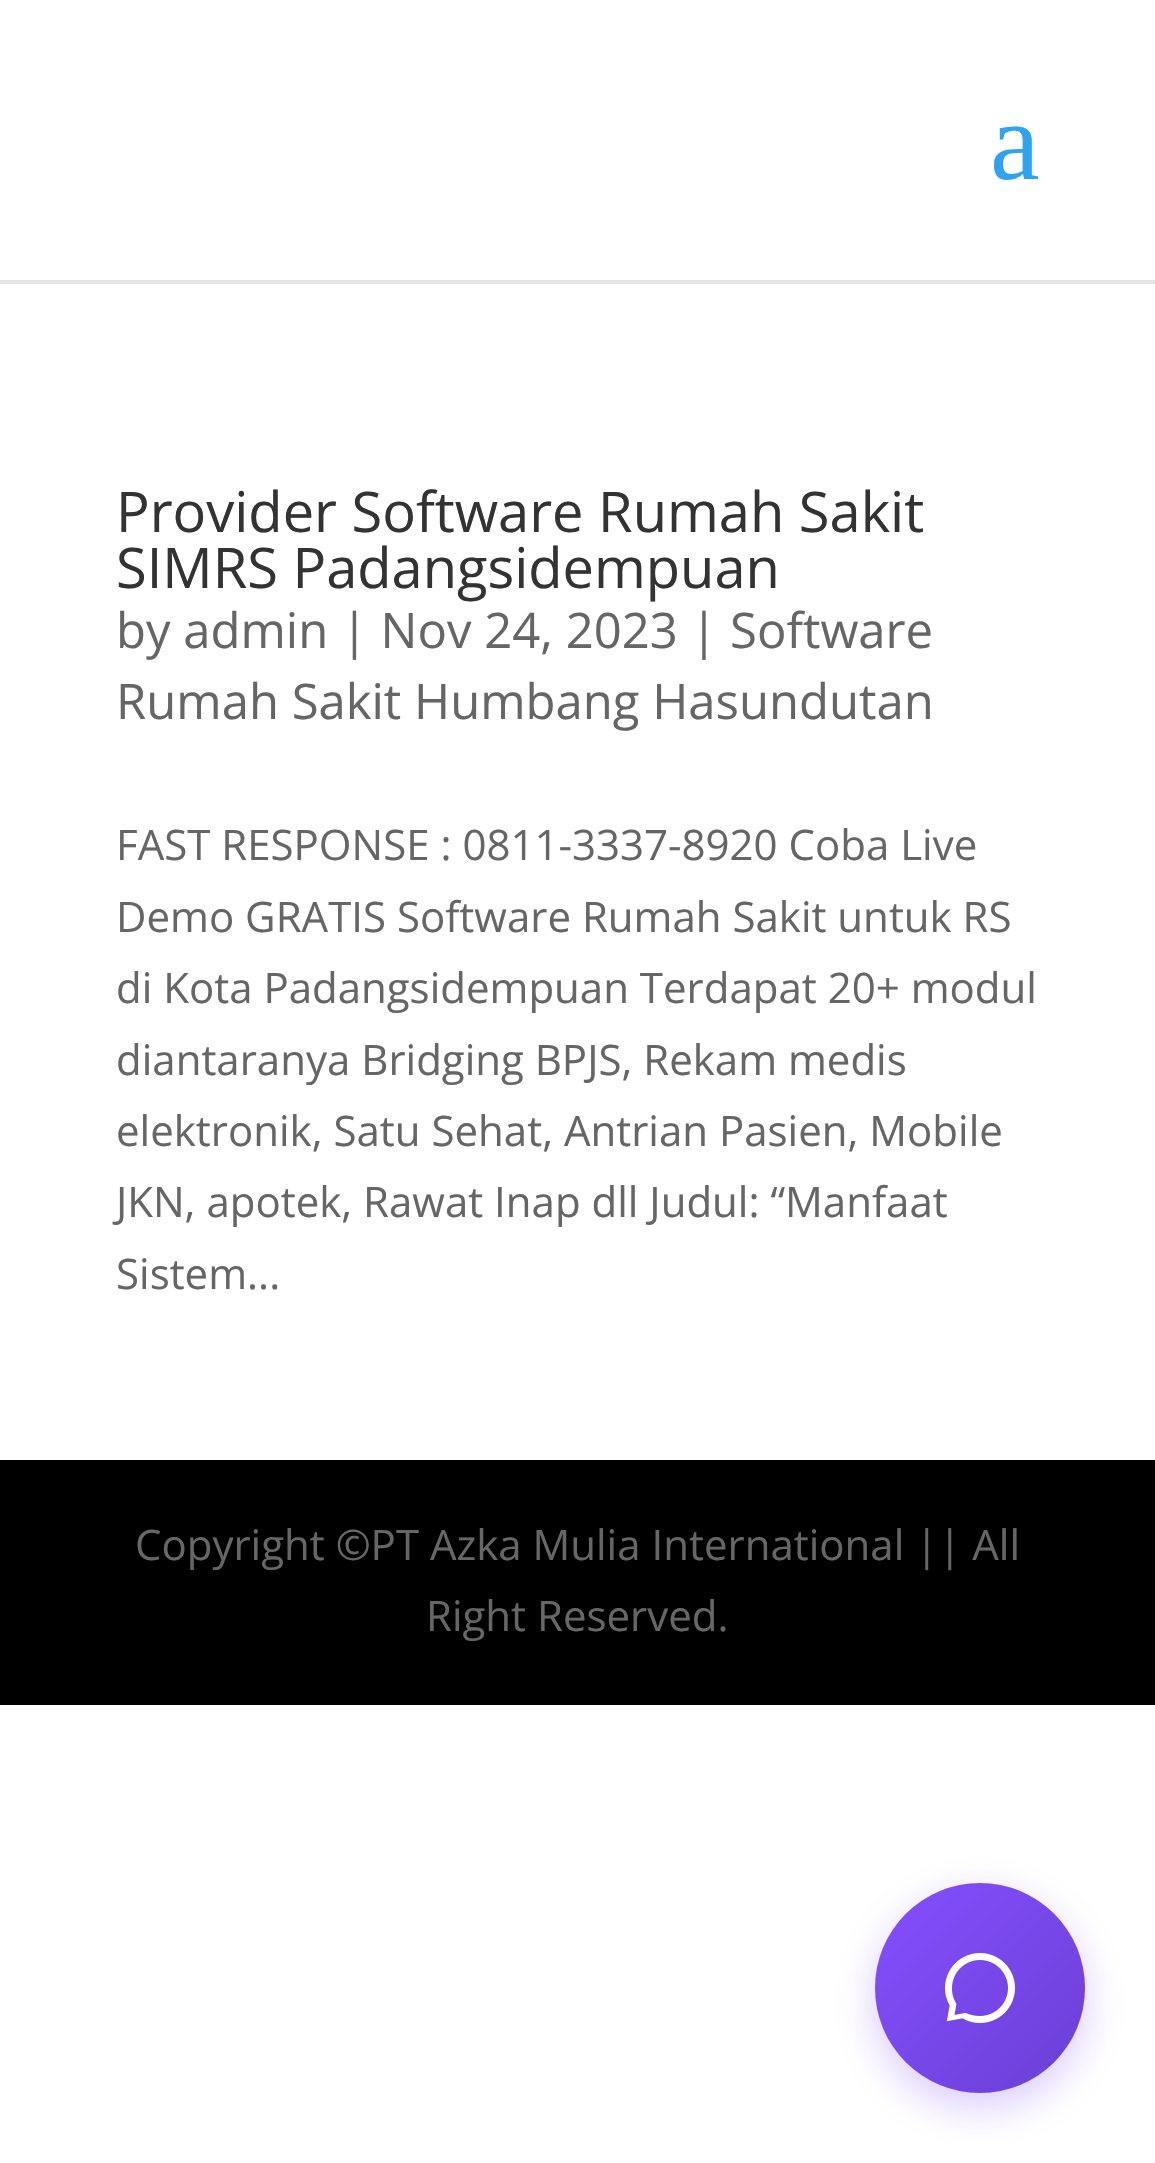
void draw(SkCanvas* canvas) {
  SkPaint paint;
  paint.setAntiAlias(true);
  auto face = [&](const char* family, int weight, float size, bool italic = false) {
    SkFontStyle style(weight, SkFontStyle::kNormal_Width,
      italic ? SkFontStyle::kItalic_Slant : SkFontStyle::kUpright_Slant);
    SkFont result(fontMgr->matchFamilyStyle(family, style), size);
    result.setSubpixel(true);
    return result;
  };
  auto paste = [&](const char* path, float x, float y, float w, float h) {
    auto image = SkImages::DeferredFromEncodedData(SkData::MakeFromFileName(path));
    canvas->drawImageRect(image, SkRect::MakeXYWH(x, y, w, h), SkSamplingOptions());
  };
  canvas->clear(0xffffffff);
  paint.setColor(0xffe6e6e6);
  canvas->drawRect(SkRect::MakeXYWH(0, 280, 1155, 4), paint);
  paint.setColor(0xff000000);
  canvas->drawRect(SkRect::MakeXYWH(0, 1460, 1155, 245), paint);
  paint.setColor(0x4d854fff);
  paint.setMaskFilter(SkMaskFilter::MakeBlur(kNormal_SkBlurStyle, 21));
  canvas->drawRoundRect(SkRect::MakeXYWH(875, 1897, 210, 210), 105, 105, paint);
  paint.setMaskFilter(nullptr);
  {
    const SkColor colors[] = {0xff854fff, 0xff6b3fd4};
    const float stops[] = {0, 1};
    const SkPoint ends[] = {{875, 1883}, {1085, 2093}};
    paint.setShader(SkGradientShader::MakeLinear(ends, colors, stops, 2, SkTileMode::kClamp));
    paint.setAlpha(255);
  }
  canvas->drawCircle(980, 1988, 105, paint);
  paste("img/1.png", 945, 1953, 70, 70);
  auto f0 = face("Liberation Serif", 400, 112);
  paint.setShader(nullptr);
  paint.setColor(0xff2ea3f2);
  canvas->drawString("a", 990, 179, f0, paint);
  auto f1 = face("Open Sans", 400, 56);
  paint.setColor(0xff333333);
  canvas->drawString("Provider Software Rumah Sakit", 116, 532, f1, paint);
  canvas->drawString("SIMRS Padangsidempuan", 116, 588, f1, paint);
  auto f2 = face("Open Sans", 400, 49);
  paint.setColor(0xff666666);
  canvas->drawString("by admin | Nov 24, 2023 | Software", 116, 648, f2, paint);
  canvas->drawString("Rumah Sakit Humbang Hasundutan", 116, 719, f2, paint);
  auto f3 = face("Open Sans", 400, 42);
  {
    const struct { const char* s; float x, y; } items[] = {
      {"FAST RESPONSE : 0811-3337-8920 Coba Live", 116, 860},
      {"Demo GRATIS Software Rumah Sakit untuk RS", 116, 932},
      {"di Kota Padangsidempuan Terdapat 20+ modul", 116, 1003},
      {"diantaranya Bridging BPJS, Rekam medis", 116, 1075},
      {"elektronik, Satu Sehat, Antrian Pasien, Mobile", 116, 1146},
      {"JKN, apotek, Rawat Inap dll Judul: “Manfaat", 116, 1217},
      {"Sistem...", 116, 1289},
      {"Copyright ©PT Azka Mulia International || All", 135, 1560},
      {"Right Reserved.", 426, 1631},
    };
    for (auto [s, x, y] : items) {
      canvas->drawString(s, x, y, f3, paint);
    }
  }
}
